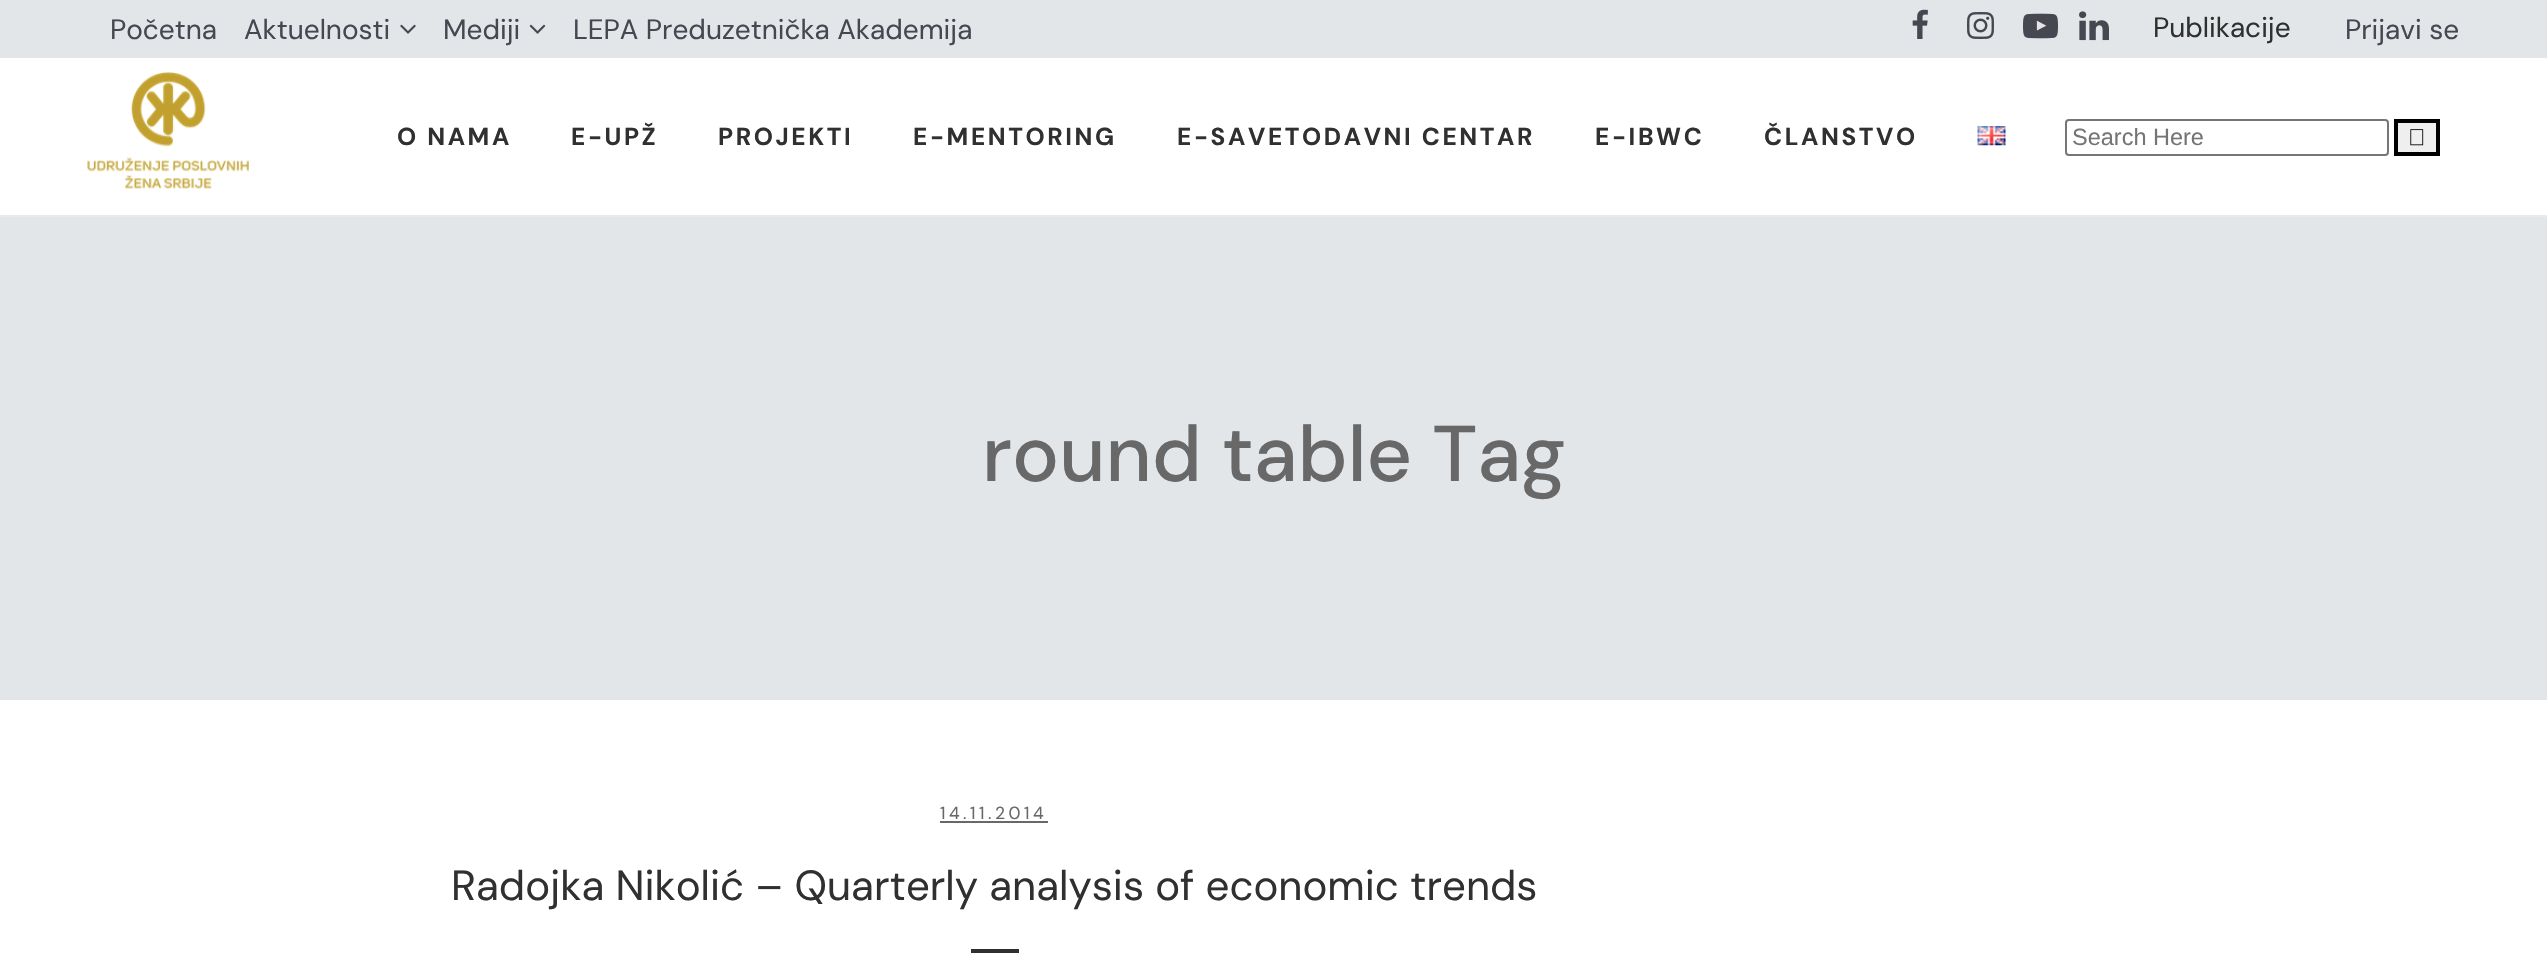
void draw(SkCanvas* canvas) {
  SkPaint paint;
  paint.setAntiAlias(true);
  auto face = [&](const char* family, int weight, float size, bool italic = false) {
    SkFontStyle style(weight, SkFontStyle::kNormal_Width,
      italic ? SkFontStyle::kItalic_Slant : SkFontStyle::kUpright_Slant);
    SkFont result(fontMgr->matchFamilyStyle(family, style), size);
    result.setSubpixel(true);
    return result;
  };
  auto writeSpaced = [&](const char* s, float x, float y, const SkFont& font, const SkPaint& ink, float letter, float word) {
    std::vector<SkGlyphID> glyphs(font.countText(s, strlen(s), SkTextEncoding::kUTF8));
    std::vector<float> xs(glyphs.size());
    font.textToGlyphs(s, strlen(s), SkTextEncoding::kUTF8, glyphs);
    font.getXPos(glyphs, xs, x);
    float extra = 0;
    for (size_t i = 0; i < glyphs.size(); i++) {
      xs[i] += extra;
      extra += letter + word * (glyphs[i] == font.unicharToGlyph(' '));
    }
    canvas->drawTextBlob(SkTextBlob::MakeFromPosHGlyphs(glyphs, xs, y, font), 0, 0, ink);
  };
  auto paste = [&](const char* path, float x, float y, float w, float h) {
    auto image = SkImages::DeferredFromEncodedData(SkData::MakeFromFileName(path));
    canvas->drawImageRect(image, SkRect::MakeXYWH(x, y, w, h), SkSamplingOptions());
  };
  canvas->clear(0xffffffff);
  paint.setColor(0xffe3e6e8);
  canvas->drawRect(SkRect::MakeXYWH(0, 0, 2547, 700), paint);
  paste("img/1.png", 400, 24, 16, 10);
  paste("img/2.png", 529, 24, 17, 10);
  paste("img/3.png", 1912, 9, 16, 30);
  paste("img/4.png", 1967, 12, 27, 27);
  paste("img/5.png", 2023, 13, 35, 26);
  paste("img/6.png", 2079, 11, 30, 30);
  paint.setColor(0xffffffff);
  canvas->drawRect(SkRect::MakeXYWH(0, 58, 2547, 157), paint);
  paint.setColor(0xffeaeaea);
  canvas->drawRect(SkRect::MakeXYWH(0, 215, 2547, 2), paint);
  paste("img/7.png", 87, 71, 162, 118);
  paste("img/8.png", 1977, 126, 29, 20);
  paint.setStroke(true);
  paint.setStrokeWidth(2);
  paint.setColor(0xff767676);
  canvas->drawRoundRect(SkRect::MakeXYWH(2066, 120, 322, 35), 3, 3, paint);
  paint.setStroke(false);
  paint.setColor(0xffefefef);
  canvas->drawRect(SkRect::MakeXYWH(2396, 121, 42, 33), paint);
  paint.setStroke(true);
  paint.setStrokeWidth(4);
  paint.setColor(0xff000000);
  canvas->drawRect(SkRect::MakeXYWH(2396, 121, 42, 33), paint);
  paste("img/9.png", 2410, 129, 14, 17);
  paint.setStroke(false);
  paint.setColor(0xff686869);
  canvas->drawRect(SkRect::MakeXYWH(940, 821, 108, 2), paint);
  paint.setColor(0xff303030);
  canvas->drawRect(SkRect::MakeXYWH(971, 949, 48, 4), paint);
  auto f0 = face("DM Sans", 400, 28);
  paint.setColor(0xff474751);
  {
    const struct { const char* s; float x, y; } items[] = {
      {"Početna", 110, 39},
      {"Aktuelnosti", 244, 39},
      {"Mediji", 443, 39},
      {"LEPA Preduzetnička Akademija", 573, 39},
    };
    for (auto [s, x, y] : items) {
      canvas->drawString(s, x, y, f0, paint);
    }
  }
  paint.setColor(0xff303030);
  canvas->drawString("Publikacije", 2153, 37, f0, paint);
  paint.setColor(0xff474751);
  canvas->drawString("Prijavi se", 2345, 39, f0, paint);
  auto f1 = face("DM Sans", 700, 24.5f);
  paint.setColor(0xff303030);
  {
    const struct { const char* s; float x, y; } items[] = {
      {"O NAMA", 397, 145},
      {"E-UPŽ", 571, 145},
      {"PROJEKTI", 718, 145},
      {"E-MENTORING", 913, 145},
      {"E-SAVETODAVNI CENTAR", 1177, 145},
      {"E-IBWC", 1595, 145},
      {"ČLANSTVO", 1764, 145},
    };
    for (auto [s, x, y] : items) {
      writeSpaced(s, x, y, f1, paint, 2.6f, 0);
    }
  }
  auto f2 = face("Liberation Sans", 400, 23.5f);
  paint.setColor(0xff757575);
  canvas->drawString("Search Here", 2072, 145, f2, paint);
  auto f3 = face("DM Sans", 500, 78.75f);
  paint.setColor(0xff686869);
  canvas->drawString("round table Tag", 982, 481, f3, paint);
  auto f4 = face("DM Sans", 400, 17.5f);
  writeSpaced("14.11.2014", 940, 819, f4, paint, 3.5f, 0);
  auto f5 = face("DM Sans", 400, 42);
  paint.setColor(0xff303030);
  canvas->drawString("Radojka Nikolić – Quarterly analysis of economic trends", 451, 900, f5, paint);
}
